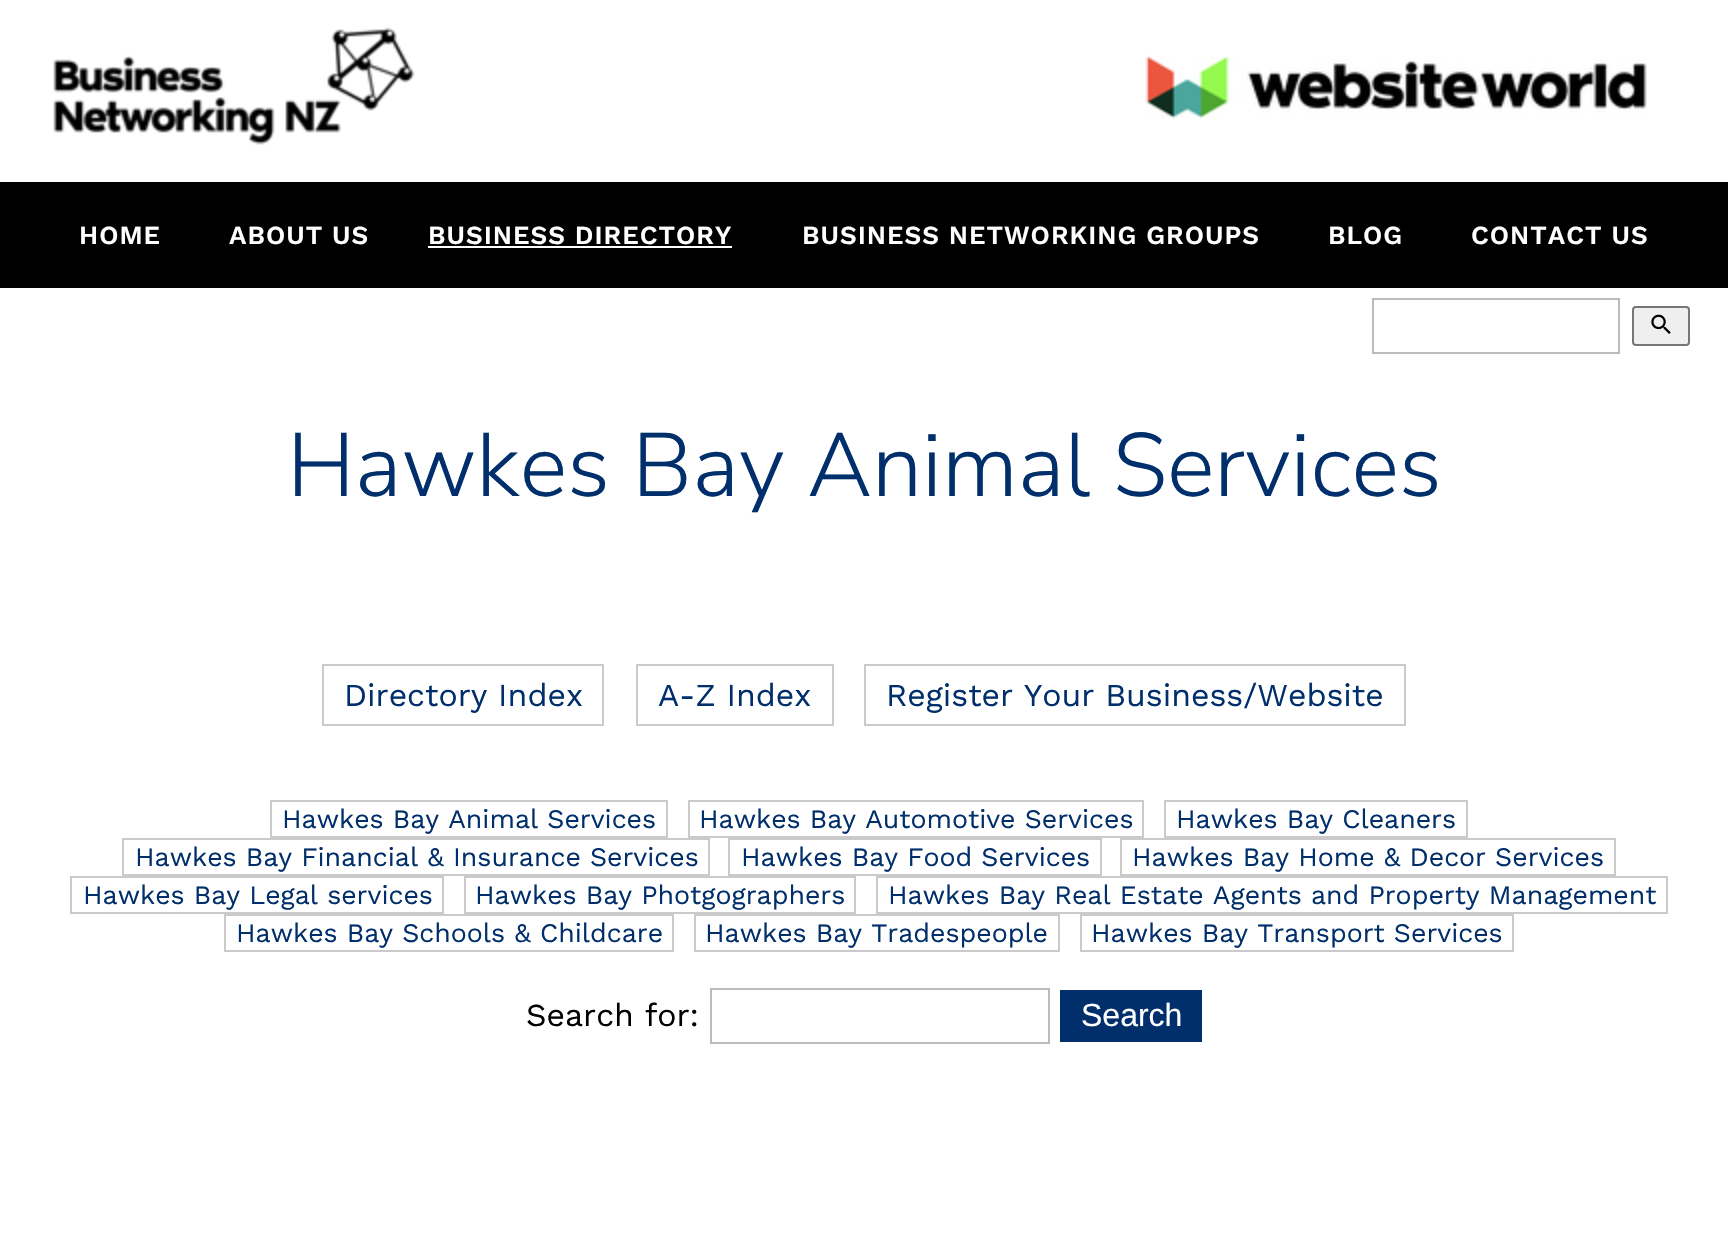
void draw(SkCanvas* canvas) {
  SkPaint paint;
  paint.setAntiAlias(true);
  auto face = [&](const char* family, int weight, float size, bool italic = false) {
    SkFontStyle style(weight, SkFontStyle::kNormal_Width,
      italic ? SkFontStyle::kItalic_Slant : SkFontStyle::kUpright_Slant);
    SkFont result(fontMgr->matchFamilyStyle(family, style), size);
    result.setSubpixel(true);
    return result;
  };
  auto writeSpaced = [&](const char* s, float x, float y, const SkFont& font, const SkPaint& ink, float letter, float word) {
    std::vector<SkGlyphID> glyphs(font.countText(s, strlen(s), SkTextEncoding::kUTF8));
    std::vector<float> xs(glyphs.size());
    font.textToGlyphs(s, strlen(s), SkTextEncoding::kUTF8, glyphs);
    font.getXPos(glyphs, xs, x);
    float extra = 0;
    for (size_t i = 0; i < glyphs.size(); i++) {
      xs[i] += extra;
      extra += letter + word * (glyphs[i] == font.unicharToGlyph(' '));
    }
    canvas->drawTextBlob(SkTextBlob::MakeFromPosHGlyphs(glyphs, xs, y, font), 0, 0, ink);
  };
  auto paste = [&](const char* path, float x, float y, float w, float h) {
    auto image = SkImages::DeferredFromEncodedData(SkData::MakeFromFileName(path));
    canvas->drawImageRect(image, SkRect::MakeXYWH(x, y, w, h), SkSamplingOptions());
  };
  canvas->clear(0xffffffff);
  paste("img/1.png", 53, 27, 362, 118);
  paste("img/2.png", 1145, 55, 502, 64);
  paint.setColor(0xff000000);
  canvas->drawRect(SkRect::MakeXYWH(0, 182, 1728, 106), paint);
  paint.setColor(0xffffffff);
  canvas->drawRect(SkRect::MakeXYWH(428, 246, 304, 2), paint);
  paint.setStroke(true);
  paint.setStrokeWidth(2);
  paint.setColor(0xffbcbcbc);
  canvas->drawRect(SkRect::MakeXYWH(1373, 299, 246, 54), paint);
  paint.setStroke(false);
  paint.setColor(0xffefefef);
  canvas->drawRoundRect(SkRect::MakeXYWH(1633, 307, 56, 38), 3, 3, paint);
  paint.setStroke(true);
  paint.setColor(0xff767676);
  canvas->drawRoundRect(SkRect::MakeXYWH(1633, 307, 56, 38), 3, 3, paint);
  paste("img/3.png", 1651, 314, 20, 20);
  paint.setColor(0xffcacaca);
  canvas->drawRect(SkRect::MakeXYWH(323, 665, 280, 60), paint);
  canvas->drawRect(SkRect::MakeXYWH(637, 665, 196, 60), paint);
  canvas->drawRect(SkRect::MakeXYWH(865, 665, 540, 60), paint);
  canvas->drawRect(SkRect::MakeXYWH(271, 801, 396, 36), paint);
  canvas->drawRect(SkRect::MakeXYWH(689, 801, 454, 36), paint);
  canvas->drawRect(SkRect::MakeXYWH(1165, 801, 302, 36), paint);
  canvas->drawRect(SkRect::MakeXYWH(123, 839, 586, 36), paint);
  canvas->drawRect(SkRect::MakeXYWH(729, 839, 372, 36), paint);
  canvas->drawRect(SkRect::MakeXYWH(1121, 839, 494, 36), paint);
  canvas->drawRect(SkRect::MakeXYWH(71, 877, 372, 36), paint);
  canvas->drawRect(SkRect::MakeXYWH(465, 877, 390, 36), paint);
  canvas->drawRect(SkRect::MakeXYWH(877, 877, 790, 36), paint);
  canvas->drawRect(SkRect::MakeXYWH(225, 915, 448, 36), paint);
  canvas->drawRect(SkRect::MakeXYWH(695, 915, 364, 36), paint);
  canvas->drawRect(SkRect::MakeXYWH(1081, 915, 432, 36), paint);
  paint.setColor(0xffbcbcbc);
  canvas->drawRect(SkRect::MakeXYWH(711, 989, 338, 54), paint);
  paint.setStroke(false);
  paint.setColor(0xff002f6b);
  canvas->drawRect(SkRect::MakeXYWH(1060, 990, 142, 52), paint);
  auto f0 = face("Work Sans", 600, 26);
  paint.setColor(0xffffffff);
  {
    const struct { const char* s; float x, y; } items[] = {
      {"HOME", 79, 244},
      {"ABOUT US", 229, 244},
      {"BUSINESS DIRECTORY", 428, 244},
      {"BUSINESS NETWORKING GROUPS", 802, 244},
      {"BLOG", 1328, 244},
      {"CONTACT US", 1471, 244},
    };
    for (auto [s, x, y] : items) {
      writeSpaced(s, x, y, f0, paint, 1, 0);
    }
  }
  auto f1 = face("Nunito Sans", 300, 89.6f);
  paint.setColor(0xff002f6b);
  canvas->drawString("Hawkes Bay Animal Services", 287, 496, f1, paint);
  auto f2 = face("Work Sans", 400, 32);
  {
    const struct { const char* s; float x, y; } items[] = {
      {"Directory Index", 344, 706},
      {"A-Z Index", 658, 706},
      {"Register Your Business/Website", 886, 706},
    };
    for (auto [s, x, y] : items) {
      canvas->drawString(s, x, y, f2, paint);
    }
  }
  auto f3 = face("Work Sans", 400, 26.7f);
  {
    const struct { const char* s; float x, y; } items[] = {
      {"Hawkes Bay Animal Services", 282, 828},
      {"Hawkes Bay Automotive Services", 699, 828},
      {"Hawkes Bay Cleaners", 1176, 828},
      {"Hawkes Bay Financial & Insurance Services", 135, 866},
      {"Hawkes Bay Food Services", 741, 866},
      {"Hawkes Bay Home & Decor Services", 1132, 866},
      {"Hawkes Bay Legal services", 83, 904},
      {"Hawkes Bay Photgographers", 475, 904},
      {"Hawkes Bay Real Estate Agents and Property Management", 888, 904},
      {"Hawkes Bay Schools & Childcare", 236, 942},
      {"Hawkes Bay Tradespeople", 705, 942},
      {"Hawkes Bay Transport Services", 1091, 942},
    };
    for (auto [s, x, y] : items) {
      canvas->drawString(s, x, y, f3, paint);
    }
  }
  paint.setColor(0xff000000);
  canvas->drawString("Search for:", 526, 1026, f2, paint);
  auto f4 = face("Liberation Sans", 400, 32);
  paint.setColor(0xffffffff);
  canvas->drawString("Search", 1081, 1026, f4, paint);
}
